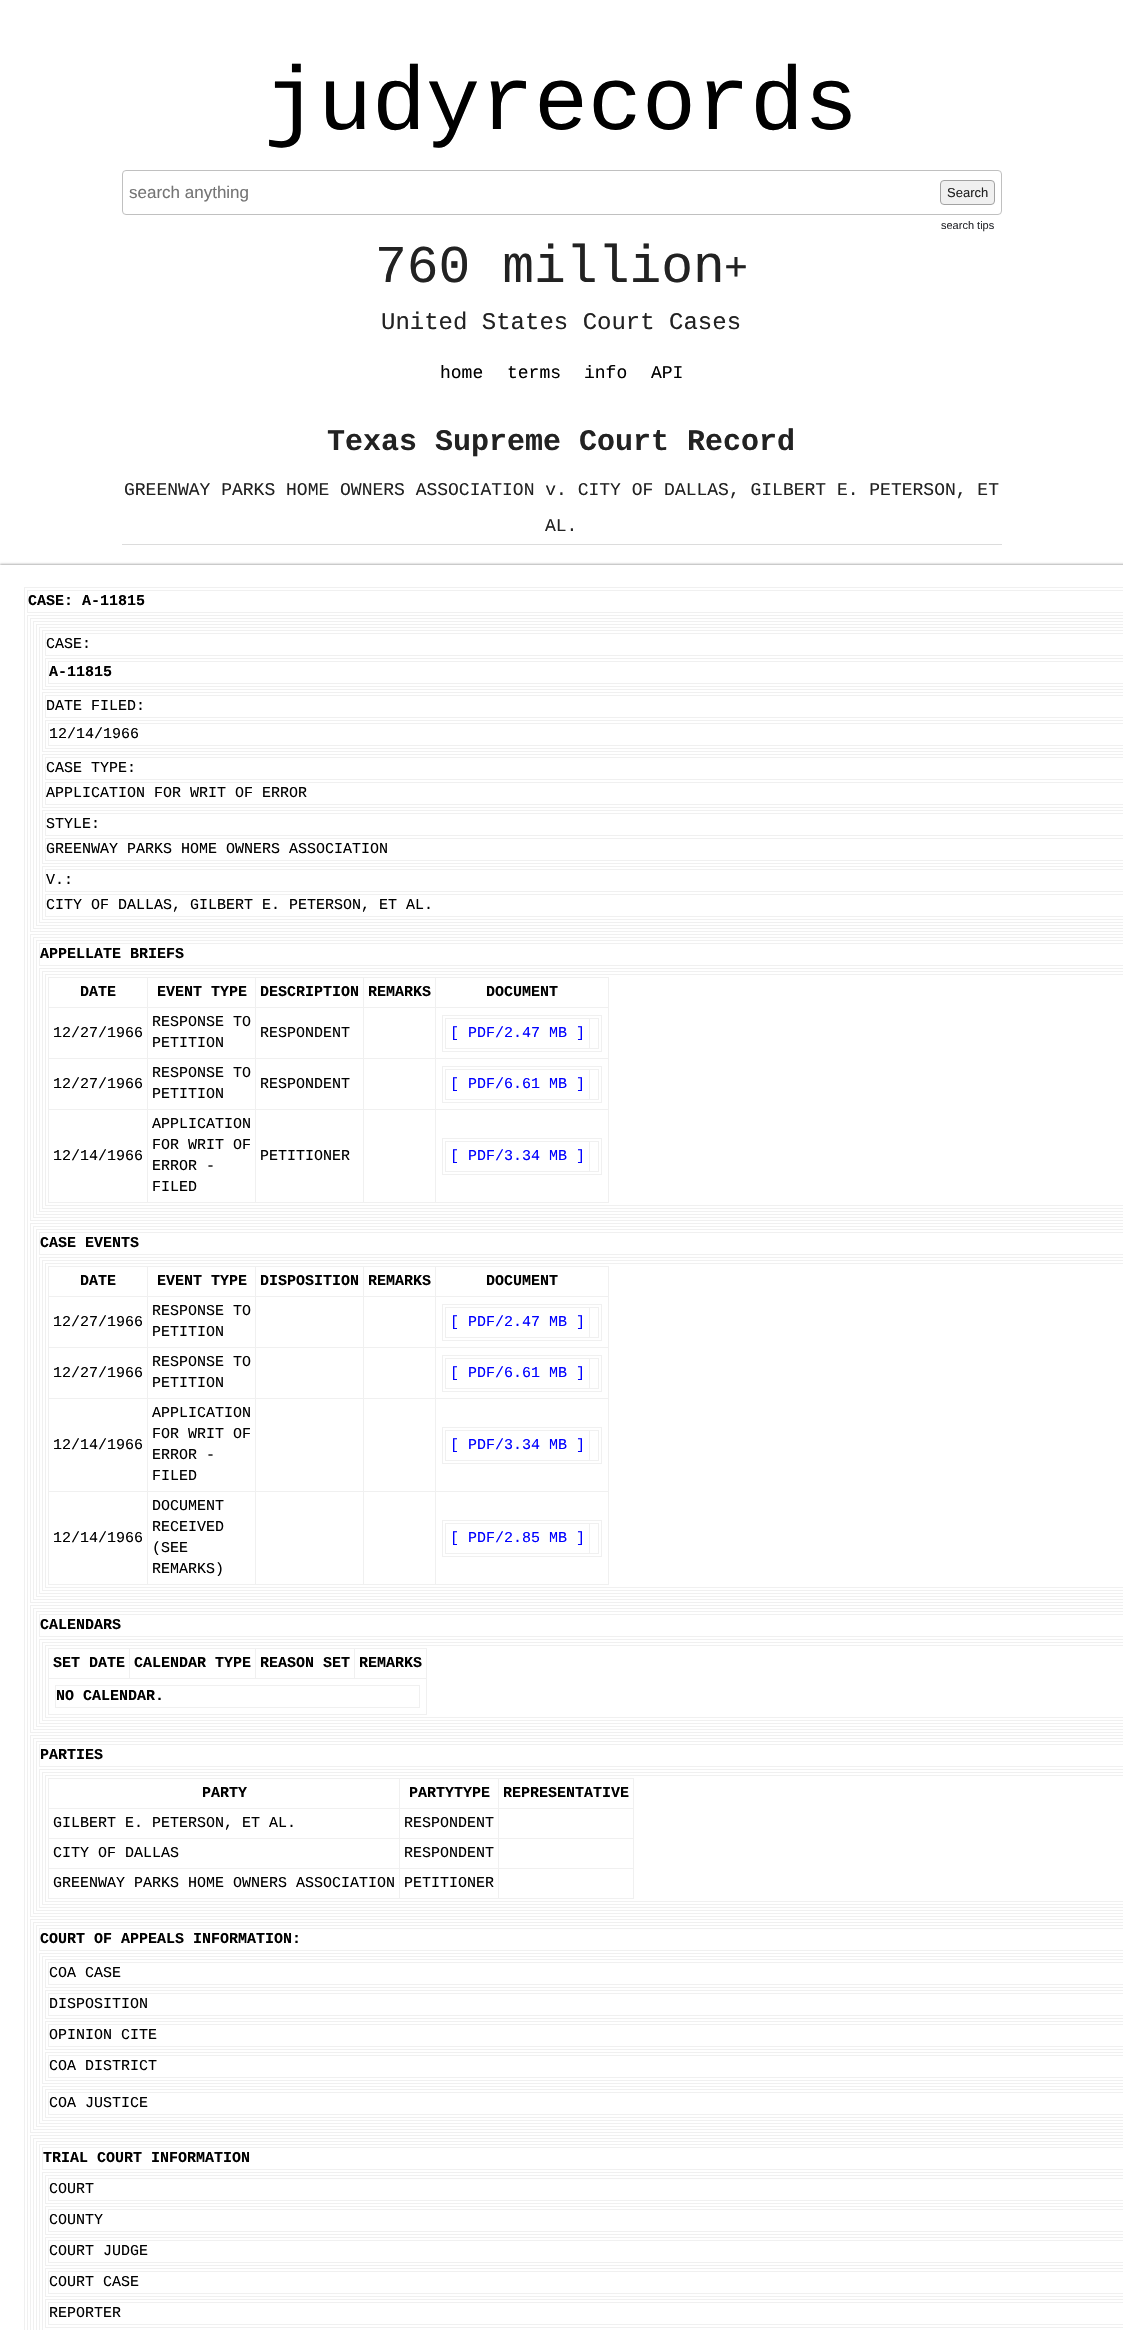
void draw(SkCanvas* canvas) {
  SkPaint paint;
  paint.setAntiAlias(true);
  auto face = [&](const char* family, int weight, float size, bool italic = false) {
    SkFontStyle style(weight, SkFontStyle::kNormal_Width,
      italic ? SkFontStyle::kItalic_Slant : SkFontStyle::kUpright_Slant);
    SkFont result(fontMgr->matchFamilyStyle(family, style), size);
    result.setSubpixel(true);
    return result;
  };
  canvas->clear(0xffffffff);
  paint.setColor(0xffdcdcdc);
  canvas->drawRect(SkRect::MakeXYWH(122, 544, 880, 1), paint);
  paint.setStroke(true);
  paint.setStrokeWidth(1);
  paint.setColor(0xffc0c0c0);
  canvas->drawRoundRect(SkRect::MakeXYWH(122.5f, 170.5f, 879, 44), 3.5f, 3.5f, paint);
  paint.setStroke(false);
  paint.setColor(0xfff0f0f0);
  canvas->drawRoundRect(SkRect::MakeXYWH(940.5f, 180.5f, 54, 24), 3.5f, 3.5f, paint);
  paint.setStroke(true);
  paint.setColor(0xffa2a2a2);
  canvas->drawRoundRect(SkRect::MakeXYWH(940.5f, 180.5f, 54, 24), 3.5f, 3.5f, paint);
  paint.setStroke(false);
  paint.setColor(0x4d000000);
  paint.setMaskFilter(SkMaskFilter::MakeBlur(kNormal_SkBlurStyle, 1));
  canvas->drawRect(SkRect::MakeXYWH(0, 564, 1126, 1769), paint);
  paint.setMaskFilter(nullptr);
  paint.setColor(0xffffffff);
  canvas->drawRect(SkRect::MakeXYWH(0, 565, 1123, 1765), paint);
  paint.setStroke(true);
  paint.setColor(0xfff0f0f0);
  canvas->drawRect(SkRect::MakeXYWH(24.5f, 587.5f, 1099, 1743), paint);
  canvas->drawRect(SkRect::MakeXYWH(27.5f, 590.5f, 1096, 22), paint);
  canvas->drawRect(SkRect::MakeXYWH(27.5f, 615.5f, 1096, 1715), paint);
  canvas->drawRect(SkRect::MakeXYWH(30.5f, 618.5f, 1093, 313), paint);
  canvas->drawRect(SkRect::MakeXYWH(33.5f, 621.5f, 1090, 307), paint);
  canvas->drawRect(SkRect::MakeXYWH(36.5f, 624.5f, 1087, 301), paint);
  canvas->drawRect(SkRect::MakeXYWH(39.5f, 627.5f, 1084, 295), paint);
  canvas->drawRect(SkRect::MakeXYWH(42.5f, 630.5f, 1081, 59), paint);
  canvas->drawRect(SkRect::MakeXYWH(45.5f, 633.5f, 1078, 22), paint);
  canvas->drawRect(SkRect::MakeXYWH(45.5f, 658.5f, 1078, 28), paint);
  canvas->drawRect(SkRect::MakeXYWH(48.5f, 661.5f, 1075, 22), paint);
  canvas->drawRect(SkRect::MakeXYWH(42.5f, 692.5f, 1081, 59), paint);
  canvas->drawRect(SkRect::MakeXYWH(45.5f, 695.5f, 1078, 22), paint);
  canvas->drawRect(SkRect::MakeXYWH(45.5f, 720.5f, 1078, 28), paint);
  canvas->drawRect(SkRect::MakeXYWH(48.5f, 723.5f, 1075, 22), paint);
  canvas->drawRect(SkRect::MakeXYWH(42.5f, 754.5f, 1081, 53), paint);
  canvas->drawRect(SkRect::MakeXYWH(45.5f, 757.5f, 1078, 22), paint);
  canvas->drawRect(SkRect::MakeXYWH(45.5f, 782.5f, 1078, 22), paint);
  canvas->drawRect(SkRect::MakeXYWH(42.5f, 810.5f, 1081, 53), paint);
  canvas->drawRect(SkRect::MakeXYWH(45.5f, 813.5f, 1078, 22), paint);
  canvas->drawRect(SkRect::MakeXYWH(45.5f, 838.5f, 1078, 22), paint);
  canvas->drawRect(SkRect::MakeXYWH(42.5f, 866.5f, 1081, 53), paint);
  canvas->drawRect(SkRect::MakeXYWH(45.5f, 869.5f, 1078, 22), paint);
  canvas->drawRect(SkRect::MakeXYWH(45.5f, 894.5f, 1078, 22), paint);
  canvas->drawRect(SkRect::MakeXYWH(30.5f, 934.5f, 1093, 286), paint);
  canvas->drawRect(SkRect::MakeXYWH(33.5f, 937.5f, 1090, 280), paint);
  canvas->drawRect(SkRect::MakeXYWH(36.5f, 940.5f, 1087, 274), paint);
  canvas->drawRect(SkRect::MakeXYWH(39.5f, 943.5f, 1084, 22), paint);
  canvas->drawRect(SkRect::MakeXYWH(39.5f, 968.5f, 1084, 243), paint);
  canvas->drawRect(SkRect::MakeXYWH(42.5f, 971.5f, 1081, 237), paint);
  canvas->drawRect(SkRect::MakeXYWH(45.5f, 974.5f, 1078, 231), paint);
  paint.setStroke(false);
  {
    const struct { float x, y, w, h; SkColor color; } items[] = {
      {48, 977, 561, 1, 0xfff0f0f0},
      {608, 977, 1, 226, 0xfff0f0f0},
      {48, 1202, 561, 1, 0xfff0f0f0},
      {48, 977, 1, 226, 0xfff0f0f0},
      {435, 1007, 174, 1, 0xfff0f0f0},
      {435, 1058, 174, 1, 0xfff0f0f0},
      {435, 1109, 174, 1, 0xfff0f0f0},
      {435, 1109, 1, 94, 0xfff0f0f0},
      {363, 1109, 73, 1, 0xfff0f0f0},
      {435, 1058, 1, 52, 0xfff0f0f0},
      {363, 1058, 73, 1, 0xfff0f0f0},
      {435, 1007, 1, 52, 0xfff0f0f0},
      {363, 1007, 73, 1, 0xfff0f0f0},
      {363, 1109, 1, 94, 0xfff0f0f0},
      {255, 1109, 109, 1, 0xfff0f0f0},
      {363, 1058, 1, 52, 0xfff0f0f0},
      {255, 1058, 109, 1, 0xfff0f0f0},
      {363, 1007, 1, 52, 0xfff0f0f0},
      {255, 1007, 109, 1, 0xfff0f0f0},
      {363, 977, 1, 31, 0xfff0f0f0},
      {255, 1109, 1, 94, 0xfff0f0f0},
      {147, 1109, 109, 1, 0xfff0f0f0},
      {255, 1058, 1, 52, 0xfff0f0f0},
      {147, 1058, 109, 1, 0xfff0f0f0},
      {255, 1007, 1, 52, 0xfff0f0f0},
      {147, 1007, 109, 1, 0xfff0f0f0},
      {147, 1109, 1, 94, 0xfff0f0f0},
      {48, 1109, 100, 1, 0xfff0f0f0},
      {147, 1058, 1, 52, 0xfff0f0f0},
      {48, 1058, 100, 1, 0xfff0f0f0},
      {147, 1007, 1, 52, 0xfff0f0f0},
      {48, 1007, 100, 1, 0xfff0f0f0},
      {147, 977, 1, 31, 0xfff0f0f0},
      {255, 977, 1, 31, 0xfff0f0f0},
      {435, 977, 1, 31, 0xfff0f0f0},
    };
    for (auto [x, y, w, h, color] : items) {
      paint.setColor(color);
      canvas->drawRect(SkRect::MakeXYWH(x, y, w, h), paint);
    }
  }
  paint.setStroke(true);
  canvas->drawRect(SkRect::MakeXYWH(442.5f, 1015.5f, 159, 36), paint);
  paint.setStroke(false);
  {
    const struct { float x, y, w, h; SkColor color; } items[] = {
      {445, 1018, 154, 1, 0xfff0f0f0},
      {598, 1018, 1, 31, 0xfff0f0f0},
      {445, 1048, 154, 1, 0xfff0f0f0},
      {445, 1018, 1, 31, 0xfff0f0f0},
      {589, 1018, 1, 31, 0xfff0f0f0},
    };
    for (auto [x, y, w, h, color] : items) {
      paint.setColor(color);
      canvas->drawRect(SkRect::MakeXYWH(x, y, w, h), paint);
    }
  }
  paint.setStroke(true);
  canvas->drawRect(SkRect::MakeXYWH(442.5f, 1066.5f, 159, 36), paint);
  paint.setStroke(false);
  {
    const struct { float x, y, w, h; SkColor color; } items[] = {
      {445, 1069, 154, 1, 0xfff0f0f0},
      {598, 1069, 1, 31, 0xfff0f0f0},
      {445, 1099, 154, 1, 0xfff0f0f0},
      {445, 1069, 1, 31, 0xfff0f0f0},
      {589, 1069, 1, 31, 0xfff0f0f0},
    };
    for (auto [x, y, w, h, color] : items) {
      paint.setColor(color);
      canvas->drawRect(SkRect::MakeXYWH(x, y, w, h), paint);
    }
  }
  paint.setStroke(true);
  canvas->drawRect(SkRect::MakeXYWH(442.5f, 1138.5f, 159, 36), paint);
  paint.setStroke(false);
  {
    const struct { float x, y, w, h; SkColor color; } items[] = {
      {445, 1141, 154, 1, 0xfff0f0f0},
      {598, 1141, 1, 31, 0xfff0f0f0},
      {445, 1171, 154, 1, 0xfff0f0f0},
      {445, 1141, 1, 31, 0xfff0f0f0},
      {589, 1141, 1, 31, 0xfff0f0f0},
    };
    for (auto [x, y, w, h, color] : items) {
      paint.setColor(color);
      canvas->drawRect(SkRect::MakeXYWH(x, y, w, h), paint);
    }
  }
  paint.setStroke(true);
  canvas->drawRect(SkRect::MakeXYWH(30.5f, 1223.5f, 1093, 379), paint);
  canvas->drawRect(SkRect::MakeXYWH(33.5f, 1226.5f, 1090, 373), paint);
  canvas->drawRect(SkRect::MakeXYWH(36.5f, 1229.5f, 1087, 367), paint);
  canvas->drawRect(SkRect::MakeXYWH(39.5f, 1232.5f, 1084, 22), paint);
  canvas->drawRect(SkRect::MakeXYWH(39.5f, 1257.5f, 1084, 336), paint);
  canvas->drawRect(SkRect::MakeXYWH(42.5f, 1260.5f, 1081, 330), paint);
  canvas->drawRect(SkRect::MakeXYWH(45.5f, 1263.5f, 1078, 324), paint);
  paint.setStroke(false);
  {
    const struct { float x, y, w, h; SkColor color; } items[] = {
      {48, 1266, 561, 1, 0xfff0f0f0},
      {608, 1266, 1, 319, 0xfff0f0f0},
      {48, 1584, 561, 1, 0xfff0f0f0},
      {48, 1266, 1, 319, 0xfff0f0f0},
      {435, 1296, 174, 1, 0xfff0f0f0},
      {435, 1347, 174, 1, 0xfff0f0f0},
      {435, 1398, 174, 1, 0xfff0f0f0},
      {435, 1491, 174, 1, 0xfff0f0f0},
      {435, 1491, 1, 94, 0xfff0f0f0},
      {363, 1491, 73, 1, 0xfff0f0f0},
      {435, 1398, 1, 94, 0xfff0f0f0},
      {363, 1398, 73, 1, 0xfff0f0f0},
      {435, 1347, 1, 52, 0xfff0f0f0},
      {363, 1347, 73, 1, 0xfff0f0f0},
      {435, 1296, 1, 52, 0xfff0f0f0},
      {363, 1296, 73, 1, 0xfff0f0f0},
      {363, 1491, 1, 94, 0xfff0f0f0},
      {255, 1491, 109, 1, 0xfff0f0f0},
      {363, 1398, 1, 94, 0xfff0f0f0},
      {255, 1398, 109, 1, 0xfff0f0f0},
      {363, 1347, 1, 52, 0xfff0f0f0},
      {255, 1347, 109, 1, 0xfff0f0f0},
      {363, 1296, 1, 52, 0xfff0f0f0},
      {255, 1296, 109, 1, 0xfff0f0f0},
      {363, 1266, 1, 31, 0xfff0f0f0},
      {255, 1491, 1, 94, 0xfff0f0f0},
      {147, 1491, 109, 1, 0xfff0f0f0},
      {255, 1398, 1, 94, 0xfff0f0f0},
      {147, 1398, 109, 1, 0xfff0f0f0},
      {255, 1347, 1, 52, 0xfff0f0f0},
      {147, 1347, 109, 1, 0xfff0f0f0},
      {255, 1296, 1, 52, 0xfff0f0f0},
      {147, 1296, 109, 1, 0xfff0f0f0},
      {147, 1491, 1, 94, 0xfff0f0f0},
      {48, 1491, 100, 1, 0xfff0f0f0},
      {147, 1398, 1, 94, 0xfff0f0f0},
      {48, 1398, 100, 1, 0xfff0f0f0},
      {147, 1347, 1, 52, 0xfff0f0f0},
      {48, 1347, 100, 1, 0xfff0f0f0},
      {147, 1296, 1, 52, 0xfff0f0f0},
      {48, 1296, 100, 1, 0xfff0f0f0},
      {147, 1266, 1, 31, 0xfff0f0f0},
      {255, 1266, 1, 31, 0xfff0f0f0},
      {435, 1266, 1, 31, 0xfff0f0f0},
    };
    for (auto [x, y, w, h, color] : items) {
      paint.setColor(color);
      canvas->drawRect(SkRect::MakeXYWH(x, y, w, h), paint);
    }
  }
  paint.setStroke(true);
  canvas->drawRect(SkRect::MakeXYWH(442.5f, 1304.5f, 159, 36), paint);
  paint.setStroke(false);
  {
    const struct { float x, y, w, h; SkColor color; } items[] = {
      {445, 1307, 154, 1, 0xfff0f0f0},
      {598, 1307, 1, 31, 0xfff0f0f0},
      {445, 1337, 154, 1, 0xfff0f0f0},
      {445, 1307, 1, 31, 0xfff0f0f0},
      {589, 1307, 1, 31, 0xfff0f0f0},
    };
    for (auto [x, y, w, h, color] : items) {
      paint.setColor(color);
      canvas->drawRect(SkRect::MakeXYWH(x, y, w, h), paint);
    }
  }
  paint.setStroke(true);
  canvas->drawRect(SkRect::MakeXYWH(442.5f, 1355.5f, 159, 36), paint);
  paint.setStroke(false);
  {
    const struct { float x, y, w, h; SkColor color; } items[] = {
      {445, 1358, 154, 1, 0xfff0f0f0},
      {598, 1358, 1, 31, 0xfff0f0f0},
      {445, 1388, 154, 1, 0xfff0f0f0},
      {445, 1358, 1, 31, 0xfff0f0f0},
      {589, 1358, 1, 31, 0xfff0f0f0},
    };
    for (auto [x, y, w, h, color] : items) {
      paint.setColor(color);
      canvas->drawRect(SkRect::MakeXYWH(x, y, w, h), paint);
    }
  }
  paint.setStroke(true);
  canvas->drawRect(SkRect::MakeXYWH(442.5f, 1427.5f, 159, 36), paint);
  paint.setStroke(false);
  {
    const struct { float x, y, w, h; SkColor color; } items[] = {
      {445, 1430, 154, 1, 0xfff0f0f0},
      {598, 1430, 1, 31, 0xfff0f0f0},
      {445, 1460, 154, 1, 0xfff0f0f0},
      {445, 1430, 1, 31, 0xfff0f0f0},
      {589, 1430, 1, 31, 0xfff0f0f0},
    };
    for (auto [x, y, w, h, color] : items) {
      paint.setColor(color);
      canvas->drawRect(SkRect::MakeXYWH(x, y, w, h), paint);
    }
  }
  paint.setStroke(true);
  canvas->drawRect(SkRect::MakeXYWH(442.5f, 1520.5f, 159, 36), paint);
  paint.setStroke(false);
  {
    const struct { float x, y, w, h; SkColor color; } items[] = {
      {445, 1523, 154, 1, 0xfff0f0f0},
      {598, 1523, 1, 31, 0xfff0f0f0},
      {445, 1553, 154, 1, 0xfff0f0f0},
      {445, 1523, 1, 31, 0xfff0f0f0},
      {589, 1523, 1, 31, 0xfff0f0f0},
    };
    for (auto [x, y, w, h, color] : items) {
      paint.setColor(color);
      canvas->drawRect(SkRect::MakeXYWH(x, y, w, h), paint);
    }
  }
  paint.setStroke(true);
  canvas->drawRect(SkRect::MakeXYWH(30.5f, 1605.5f, 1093, 127), paint);
  canvas->drawRect(SkRect::MakeXYWH(33.5f, 1608.5f, 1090, 121), paint);
  canvas->drawRect(SkRect::MakeXYWH(36.5f, 1611.5f, 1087, 115), paint);
  canvas->drawRect(SkRect::MakeXYWH(39.5f, 1614.5f, 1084, 22), paint);
  canvas->drawRect(SkRect::MakeXYWH(39.5f, 1639.5f, 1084, 84), paint);
  canvas->drawRect(SkRect::MakeXYWH(42.5f, 1642.5f, 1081, 78), paint);
  canvas->drawRect(SkRect::MakeXYWH(45.5f, 1645.5f, 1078, 72), paint);
  paint.setStroke(false);
  {
    const struct { float x, y, w, h; SkColor color; } items[] = {
      {48, 1648, 379, 1, 0xfff0f0f0},
      {426, 1648, 1, 67, 0xfff0f0f0},
      {48, 1714, 379, 1, 0xfff0f0f0},
      {48, 1648, 1, 67, 0xfff0f0f0},
      {48, 1678, 379, 1, 0xfff0f0f0},
      {129, 1648, 1, 31, 0xfff0f0f0},
      {255, 1648, 1, 31, 0xfff0f0f0},
      {354, 1648, 1, 31, 0xfff0f0f0},
    };
    for (auto [x, y, w, h, color] : items) {
      paint.setColor(color);
      canvas->drawRect(SkRect::MakeXYWH(x, y, w, h), paint);
    }
  }
  paint.setStroke(true);
  canvas->drawRect(SkRect::MakeXYWH(55.5f, 1685.5f, 364, 22), paint);
  canvas->drawRect(SkRect::MakeXYWH(30.5f, 1735.5f, 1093, 181), paint);
  canvas->drawRect(SkRect::MakeXYWH(33.5f, 1738.5f, 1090, 175), paint);
  canvas->drawRect(SkRect::MakeXYWH(36.5f, 1741.5f, 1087, 169), paint);
  canvas->drawRect(SkRect::MakeXYWH(39.5f, 1744.5f, 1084, 22), paint);
  canvas->drawRect(SkRect::MakeXYWH(39.5f, 1769.5f, 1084, 138), paint);
  canvas->drawRect(SkRect::MakeXYWH(42.5f, 1772.5f, 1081, 132), paint);
  canvas->drawRect(SkRect::MakeXYWH(45.5f, 1775.5f, 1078, 126), paint);
  paint.setStroke(false);
  {
    const struct { float x, y, w, h; SkColor color; } items[] = {
      {48, 1778, 586, 1, 0xfff0f0f0},
      {633, 1778, 1, 121, 0xfff0f0f0},
      {48, 1898, 586, 1, 0xfff0f0f0},
      {48, 1778, 1, 121, 0xfff0f0f0},
      {498, 1808, 136, 1, 0xfff0f0f0},
      {498, 1838, 136, 1, 0xfff0f0f0},
      {498, 1868, 136, 1, 0xfff0f0f0},
      {498, 1868, 1, 31, 0xfff0f0f0},
      {399, 1868, 100, 1, 0xfff0f0f0},
      {498, 1838, 1, 31, 0xfff0f0f0},
      {399, 1838, 100, 1, 0xfff0f0f0},
      {498, 1808, 1, 31, 0xfff0f0f0},
      {399, 1808, 100, 1, 0xfff0f0f0},
      {399, 1868, 1, 31, 0xfff0f0f0},
      {48, 1868, 352, 1, 0xfff0f0f0},
      {399, 1838, 1, 31, 0xfff0f0f0},
      {48, 1838, 352, 1, 0xfff0f0f0},
      {399, 1808, 1, 31, 0xfff0f0f0},
      {48, 1808, 352, 1, 0xfff0f0f0},
      {399, 1778, 1, 31, 0xfff0f0f0},
      {498, 1778, 1, 31, 0xfff0f0f0},
    };
    for (auto [x, y, w, h, color] : items) {
      paint.setColor(color);
      canvas->drawRect(SkRect::MakeXYWH(x, y, w, h), paint);
    }
  }
  paint.setStroke(true);
  canvas->drawRect(SkRect::MakeXYWH(30.5f, 1919.5f, 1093, 213), paint);
  canvas->drawRect(SkRect::MakeXYWH(33.5f, 1922.5f, 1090, 207), paint);
  canvas->drawRect(SkRect::MakeXYWH(36.5f, 1925.5f, 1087, 201), paint);
  canvas->drawRect(SkRect::MakeXYWH(39.5f, 1928.5f, 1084, 22), paint);
  canvas->drawRect(SkRect::MakeXYWH(39.5f, 1953.5f, 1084, 170), paint);
  canvas->drawRect(SkRect::MakeXYWH(42.5f, 1956.5f, 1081, 127), paint);
  canvas->drawRect(SkRect::MakeXYWH(45.5f, 1959.5f, 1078, 28), paint);
  canvas->drawRect(SkRect::MakeXYWH(48.5f, 1962.5f, 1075, 22), paint);
  canvas->drawRect(SkRect::MakeXYWH(45.5f, 1990.5f, 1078, 28), paint);
  canvas->drawRect(SkRect::MakeXYWH(48.5f, 1993.5f, 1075, 22), paint);
  canvas->drawRect(SkRect::MakeXYWH(45.5f, 2021.5f, 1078, 28), paint);
  canvas->drawRect(SkRect::MakeXYWH(48.5f, 2024.5f, 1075, 22), paint);
  canvas->drawRect(SkRect::MakeXYWH(45.5f, 2052.5f, 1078, 28), paint);
  canvas->drawRect(SkRect::MakeXYWH(48.5f, 2055.5f, 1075, 22), paint);
  canvas->drawRect(SkRect::MakeXYWH(42.5f, 2086.5f, 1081, 34), paint);
  canvas->drawRect(SkRect::MakeXYWH(45.5f, 2089.5f, 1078, 28), paint);
  canvas->drawRect(SkRect::MakeXYWH(48.5f, 2092.5f, 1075, 22), paint);
  canvas->drawRect(SkRect::MakeXYWH(30.5f, 2135.5f, 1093, 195), paint);
  canvas->drawRect(SkRect::MakeXYWH(33.5f, 2138.5f, 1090, 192), paint);
  canvas->drawRect(SkRect::MakeXYWH(36.5f, 2141.5f, 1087, 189), paint);
  canvas->drawRect(SkRect::MakeXYWH(39.5f, 2144.5f, 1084, 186), paint);
  canvas->drawRect(SkRect::MakeXYWH(42.5f, 2147.5f, 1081, 22), paint);
  canvas->drawRect(SkRect::MakeXYWH(42.5f, 2172.5f, 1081, 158), paint);
  canvas->drawRect(SkRect::MakeXYWH(45.5f, 2175.5f, 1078, 28), paint);
  canvas->drawRect(SkRect::MakeXYWH(48.5f, 2178.5f, 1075, 22), paint);
  canvas->drawRect(SkRect::MakeXYWH(45.5f, 2206.5f, 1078, 28), paint);
  canvas->drawRect(SkRect::MakeXYWH(48.5f, 2209.5f, 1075, 22), paint);
  canvas->drawRect(SkRect::MakeXYWH(45.5f, 2237.5f, 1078, 28), paint);
  canvas->drawRect(SkRect::MakeXYWH(48.5f, 2240.5f, 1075, 22), paint);
  canvas->drawRect(SkRect::MakeXYWH(45.5f, 2268.5f, 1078, 28), paint);
  canvas->drawRect(SkRect::MakeXYWH(48.5f, 2271.5f, 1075, 22), paint);
  canvas->drawRect(SkRect::MakeXYWH(45.5f, 2299.5f, 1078, 28), paint);
  canvas->drawRect(SkRect::MakeXYWH(48.5f, 2302.5f, 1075, 22), paint);
  auto f0 = face("Liberation Mono", 400, 90);
  paint.setStroke(false);
  paint.setColor(0xff000000);
  canvas->drawString("judyrecords", 264, 129, f0, paint);
  auto f1 = face("Liberation Sans", 400, 17);
  paint.setColor(0xff757575);
  canvas->drawString("search anything", 129, 198, f1, paint);
  auto f2 = face("Liberation Sans", 400, 13);
  paint.setColor(0xff222222);
  canvas->drawString("Search", 947, 197, f2, paint);
  auto f3 = face("Liberation Sans", 400, 11);
  paint.setColor(0xff2b2c31);
  canvas->drawString("search tips", 941, 229, f3, paint);
  auto f4 = face("Liberation Mono", 400, 53);
  paint.setColor(0xff222222);
  canvas->drawString("760 million", 375, 282, f4, paint);
  auto f5 = face("Liberation Mono", 400, 40);
  canvas->drawString("+", 724, 280, f5, paint);
  auto f6 = face("Liberation Mono", 400, 24);
  canvas->drawString("United States Court Cases", 381, 329, f6, paint);
  auto f7 = face("Liberation Mono", 400, 18);
  paint.setColor(0xff000000);
  {
    const struct { const char* s; float x, y; } items[] = {
      {"home", 440, 378},
      {"terms", 507, 378},
      {"info", 584, 378},
      {"API", 651, 378},
    };
    for (auto [s, x, y] : items) {
      canvas->drawString(s, x, y, f7, paint);
    }
  }
  auto f8 = face("Liberation Mono", 700, 30);
  paint.setColor(0xff222222);
  canvas->drawString("Texas Supreme Court Record", 327, 450, f8, paint);
  canvas->drawString("GREENWAY PARKS HOME OWNERS ASSOCIATION v. CITY OF DALLAS, GILBERT E. PETERSON, ET", 124, 495, f7, paint);
  canvas->drawString("AL.", 545, 531, f7, paint);
  auto f9 = face("Liberation Mono", 700, 15);
  paint.setColor(0xff000000);
  canvas->drawString("CASE: A-11815", 28, 605, f9, paint);
  auto f10 = face("Liberation Mono", 400, 15);
  canvas->drawString("CASE:", 46, 648, f10, paint);
  canvas->drawString("A-11815", 49, 676, f9, paint);
  {
    const struct { const char* s; float x, y; } items[] = {
      {"DATE FILED:", 46, 710},
      {"12/14/1966", 49, 738},
      {"CASE TYPE:", 46, 772},
      {"APPLICATION FOR WRIT OF ERROR", 46, 797},
      {"STYLE:", 46, 828},
      {"GREENWAY PARKS HOME OWNERS ASSOCIATION", 46, 853},
      {"V.:", 46, 884},
      {"CITY OF DALLAS, GILBERT E. PETERSON, ET AL.", 46, 909},
    };
    for (auto [s, x, y] : items) {
      canvas->drawString(s, x, y, f10, paint);
    }
  }
  {
    const struct { const char* s; float x, y; } items[] = {
      {"APPELLATE BRIEFS", 40, 958},
      {"DATE", 80, 996},
      {"EVENT TYPE", 157, 996},
      {"DESCRIPTION REMARKS", 260, 996},
      {"DOCUMENT", 486, 996},
    };
    for (auto [s, x, y] : items) {
      canvas->drawString(s, x, y, f9, paint);
    }
  }
  {
    const struct { const char* s; float x, y; } items[] = {
      {"12/27/1966", 53, 1037},
      {"RESPONSE TO", 152, 1026},
      {"PETITION", 152, 1047},
      {"RESPONDENT", 260, 1037},
    };
    for (auto [s, x, y] : items) {
      canvas->drawString(s, x, y, f10, paint);
    }
  }
  paint.setColor(0xff0000ff);
  canvas->drawString("[ PDF/2.47 MB ]", 450, 1037, f10, paint);
  paint.setColor(0xff000000);
  {
    const struct { const char* s; float x, y; } items[] = {
      {"12/27/1966", 53, 1088},
      {"RESPONSE TO", 152, 1077},
      {"PETITION", 152, 1098},
      {"RESPONDENT", 260, 1088},
    };
    for (auto [s, x, y] : items) {
      canvas->drawString(s, x, y, f10, paint);
    }
  }
  paint.setColor(0xff0000ff);
  canvas->drawString("[ PDF/6.61 MB ]", 450, 1088, f10, paint);
  paint.setColor(0xff000000);
  {
    const struct { const char* s; float x, y; } items[] = {
      {"12/14/1966", 53, 1160},
      {"APPLICATION", 152, 1128},
      {"FOR WRIT OF", 152, 1149},
      {"ERROR -", 152, 1170},
      {"FILED", 152, 1191},
      {"PETITIONER", 260, 1160},
    };
    for (auto [s, x, y] : items) {
      canvas->drawString(s, x, y, f10, paint);
    }
  }
  paint.setColor(0xff0000ff);
  canvas->drawString("[ PDF/3.34 MB ]", 450, 1160, f10, paint);
  paint.setColor(0xff000000);
  {
    const struct { const char* s; float x, y; } items[] = {
      {"CASE EVENTS", 40, 1247},
      {"DATE", 80, 1285},
      {"EVENT TYPE", 157, 1285},
      {"DISPOSITION REMARKS", 260, 1285},
      {"DOCUMENT", 486, 1285},
    };
    for (auto [s, x, y] : items) {
      canvas->drawString(s, x, y, f9, paint);
    }
  }
  {
    const struct { const char* s; float x, y; } items[] = {
      {"12/27/1966", 53, 1326},
      {"RESPONSE TO", 152, 1315},
      {"PETITION", 152, 1336},
    };
    for (auto [s, x, y] : items) {
      canvas->drawString(s, x, y, f10, paint);
    }
  }
  paint.setColor(0xff0000ff);
  canvas->drawString("[ PDF/2.47 MB ]", 450, 1326, f10, paint);
  paint.setColor(0xff000000);
  {
    const struct { const char* s; float x, y; } items[] = {
      {"12/27/1966", 53, 1377},
      {"RESPONSE TO", 152, 1366},
      {"PETITION", 152, 1387},
    };
    for (auto [s, x, y] : items) {
      canvas->drawString(s, x, y, f10, paint);
    }
  }
  paint.setColor(0xff0000ff);
  canvas->drawString("[ PDF/6.61 MB ]", 450, 1377, f10, paint);
  paint.setColor(0xff000000);
  {
    const struct { const char* s; float x, y; } items[] = {
      {"12/14/1966", 53, 1449},
      {"APPLICATION", 152, 1417},
      {"FOR WRIT OF", 152, 1438},
      {"ERROR -", 152, 1459},
      {"FILED", 152, 1480},
    };
    for (auto [s, x, y] : items) {
      canvas->drawString(s, x, y, f10, paint);
    }
  }
  paint.setColor(0xff0000ff);
  canvas->drawString("[ PDF/3.34 MB ]", 450, 1449, f10, paint);
  paint.setColor(0xff000000);
  {
    const struct { const char* s; float x, y; } items[] = {
      {"12/14/1966", 53, 1542},
      {"DOCUMENT", 152, 1510},
      {"RECEIVED", 152, 1531},
      {"(SEE", 152, 1552},
      {"REMARKS)", 152, 1573},
    };
    for (auto [s, x, y] : items) {
      canvas->drawString(s, x, y, f10, paint);
    }
  }
  paint.setColor(0xff0000ff);
  canvas->drawString("[ PDF/2.85 MB ]", 450, 1542, f10, paint);
  paint.setColor(0xff000000);
  {
    const struct { const char* s; float x, y; } items[] = {
      {"CALENDARS", 40, 1629},
      {"SET DATE CALENDAR TYPE REASON SET REMARKS", 53, 1667},
      {"NO CALENDAR.", 56, 1700},
      {"PARTIES", 40, 1759},
      {"PARTY", 202, 1797},
      {"PARTYTYPE", 409, 1797},
      {"REPRESENTATIVE", 503, 1797},
    };
    for (auto [s, x, y] : items) {
      canvas->drawString(s, x, y, f9, paint);
    }
  }
  {
    const struct { const char* s; float x, y; } items[] = {
      {"GILBERT E. PETERSON, ET AL.", 53, 1827},
      {"RESPONDENT", 404, 1827},
      {"CITY OF DALLAS", 53, 1857},
      {"RESPONDENT", 404, 1857},
      {"GREENWAY PARKS HOME OWNERS ASSOCIATION PETITIONER", 53, 1887},
    };
    for (auto [s, x, y] : items) {
      canvas->drawString(s, x, y, f10, paint);
    }
  }
  canvas->drawString("COURT OF APPEALS INFORMATION:", 40, 1943, f9, paint);
  {
    const struct { const char* s; float x, y; } items[] = {
      {"COA CASE", 49, 1977},
      {"DISPOSITION", 49, 2008},
      {"OPINION CITE", 49, 2039},
      {"COA DISTRICT", 49, 2070},
      {"COA JUSTICE", 49, 2107},
    };
    for (auto [s, x, y] : items) {
      canvas->drawString(s, x, y, f10, paint);
    }
  }
  canvas->drawString("TRIAL COURT INFORMATION", 43, 2162, f9, paint);
  {
    const struct { const char* s; float x, y; } items[] = {
      {"COURT", 49, 2193},
      {"COUNTY", 49, 2224},
      {"COURT JUDGE", 49, 2255},
      {"COURT CASE", 49, 2286},
      {"REPORTER", 49, 2317},
    };
    for (auto [s, x, y] : items) {
      canvas->drawString(s, x, y, f10, paint);
    }
  }
}
